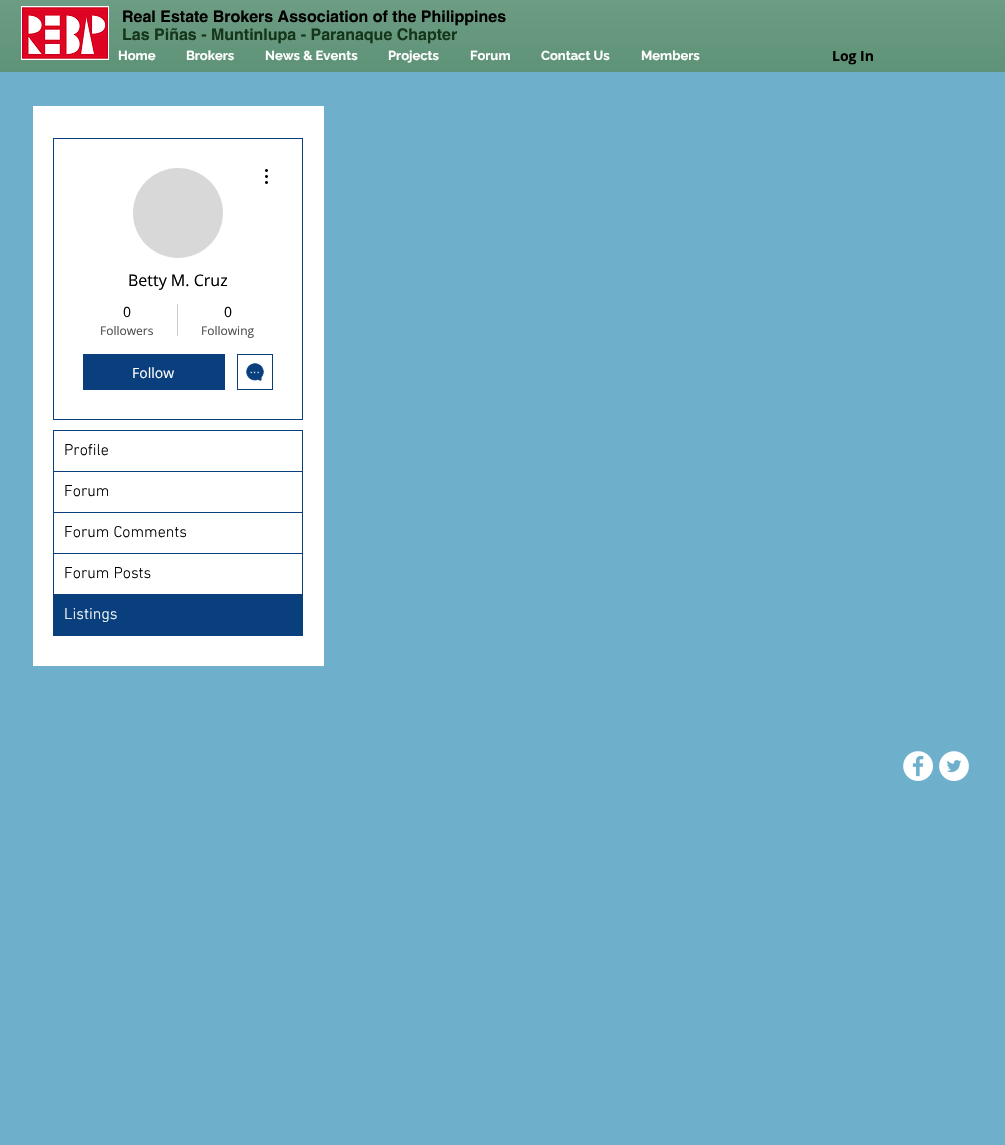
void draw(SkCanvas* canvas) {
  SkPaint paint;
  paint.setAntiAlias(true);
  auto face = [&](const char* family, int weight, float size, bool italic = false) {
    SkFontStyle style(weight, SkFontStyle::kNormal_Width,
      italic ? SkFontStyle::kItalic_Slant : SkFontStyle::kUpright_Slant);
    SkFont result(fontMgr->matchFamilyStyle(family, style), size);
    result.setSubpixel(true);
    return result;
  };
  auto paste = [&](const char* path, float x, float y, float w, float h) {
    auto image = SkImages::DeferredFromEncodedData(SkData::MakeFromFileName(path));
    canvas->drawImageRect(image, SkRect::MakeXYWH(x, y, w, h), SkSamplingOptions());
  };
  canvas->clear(0xff6eb0cc);
  paint.setColor(0xff397a58);
  canvas->drawRect(SkRect::MakeXYWH(0, 0, 1005, 72), paint);
  paste("img/1.png", 0, 0, 1005, 72);
  paste("img/2.png", 21, 6, 88, 54);
  paint.setColor(0xffffffff);
  canvas->drawRect(SkRect::MakeXYWH(33, 106, 291, 560), paint);
  paint.setStroke(true);
  paint.setStrokeWidth(1);
  paint.setColor(0xff093f7c);
  canvas->drawRect(SkRect::MakeXYWH(53.5f, 138.5f, 249, 281), paint);
  paint.setStroke(false);
  paint.setColor(0xffd8d8d8);
  canvas->drawCircle(178, 213, 45, paint);
  paste("img/3.png", 265, 169, 3, 15);
  paint.setColor(0xffcccccc);
  canvas->drawRect(SkRect::MakeXYWH(177, 304, 1, 32), paint);
  paint.setColor(0xff093f7c);
  canvas->drawRect(SkRect::MakeXYWH(83, 354, 142, 36), paint);
  paint.setStroke(true);
  canvas->drawRect(SkRect::MakeXYWH(237.5f, 354.5f, 35, 35), paint);
  paste("img/4.png", 246, 363, 18, 18);
  canvas->drawRect(SkRect::MakeXYWH(53.5f, 430.5f, 249, 205), paint);
  paint.setStroke(false);
  {
    const struct { float x, y, w, h; SkColor color; } items[] = {
      {54, 471, 248, 1, 0xff093f7c},
      {54, 512, 248, 1, 0xff093f7c},
      {54, 553, 248, 1, 0xff093f7c},
      {54, 594, 248, 41, 0xff093f7c},
    };
    for (auto [x, y, w, h, color] : items) {
      paint.setColor(color);
      canvas->drawRect(SkRect::MakeXYWH(x, y, w, h), paint);
    }
  }
  paste("img/5.png", 903, 751, 30, 30);
  paste("img/6.png", 939, 751, 30, 30);
  auto f0 = face("helvetica", 700, 16);
  paint.setColor(0xff000000);
  canvas->drawString("Real Estate Brokers Association of the Philippines", 122, 22, f0, paint);
  paint.setColor(0xff15361b);
  canvas->drawString("Las Piñas - Muntinlupa - Paranaque Chapter", 122, 40, f0, paint);
  auto f1 = face("Raleway", 700, 13);
  paint.setColor(0xffffffff);
  {
    const struct { const char* s; float x, y; } items[] = {
      {"Home", 118, 60},
      {"Brokers", 186, 60},
      {"News & Events", 265, 60},
      {"Projects", 388, 60},
      {"Forum", 470, 60},
      {"Contact Us", 541, 60},
      {"Members", 641, 60},
    };
    for (auto [s, x, y] : items) {
      canvas->drawString(s, x, y, f1, paint);
    }
  }
  auto f2 = face("Open Sans", 700, 14);
  paint.setColor(0xff000000);
  canvas->drawString("Log In", 832, 61, f2, paint);
  auto f3 = face("Open Sans", 400, 16);
  canvas->drawString("Betty M. Cruz", 128, 286, f3, paint);
  auto f4 = face("Open Sans", 400, 14);
  canvas->drawString("0", 123, 317, f4, paint);
  auto f5 = face("Open Sans", 400, 12);
  paint.setColor(0xff4d4d4d);
  canvas->drawString("Followers", 100, 335, f5, paint);
  paint.setColor(0xff000000);
  canvas->drawString("0", 224, 317, f4, paint);
  paint.setColor(0xff4d4d4d);
  canvas->drawString("Following", 201, 335, f5, paint);
  paint.setColor(0xffffffff);
  canvas->drawString("Follow", 132, 378, f4, paint);
  auto f6 = face("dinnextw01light", 300, 16);
  paint.setColor(0xff000000);
  {
    const struct { const char* s; float x, y; } items[] = {
      {"Profile", 64, 455},
      {"Forum", 64, 496},
      {"Forum Comments", 64, 537},
      {"Forum Posts", 64, 578},
    };
    for (auto [s, x, y] : items) {
      canvas->drawString(s, x, y, f6, paint);
    }
  }
  paint.setColor(0xffffffff);
  canvas->drawString("Listings", 64, 619, f6, paint);
}
